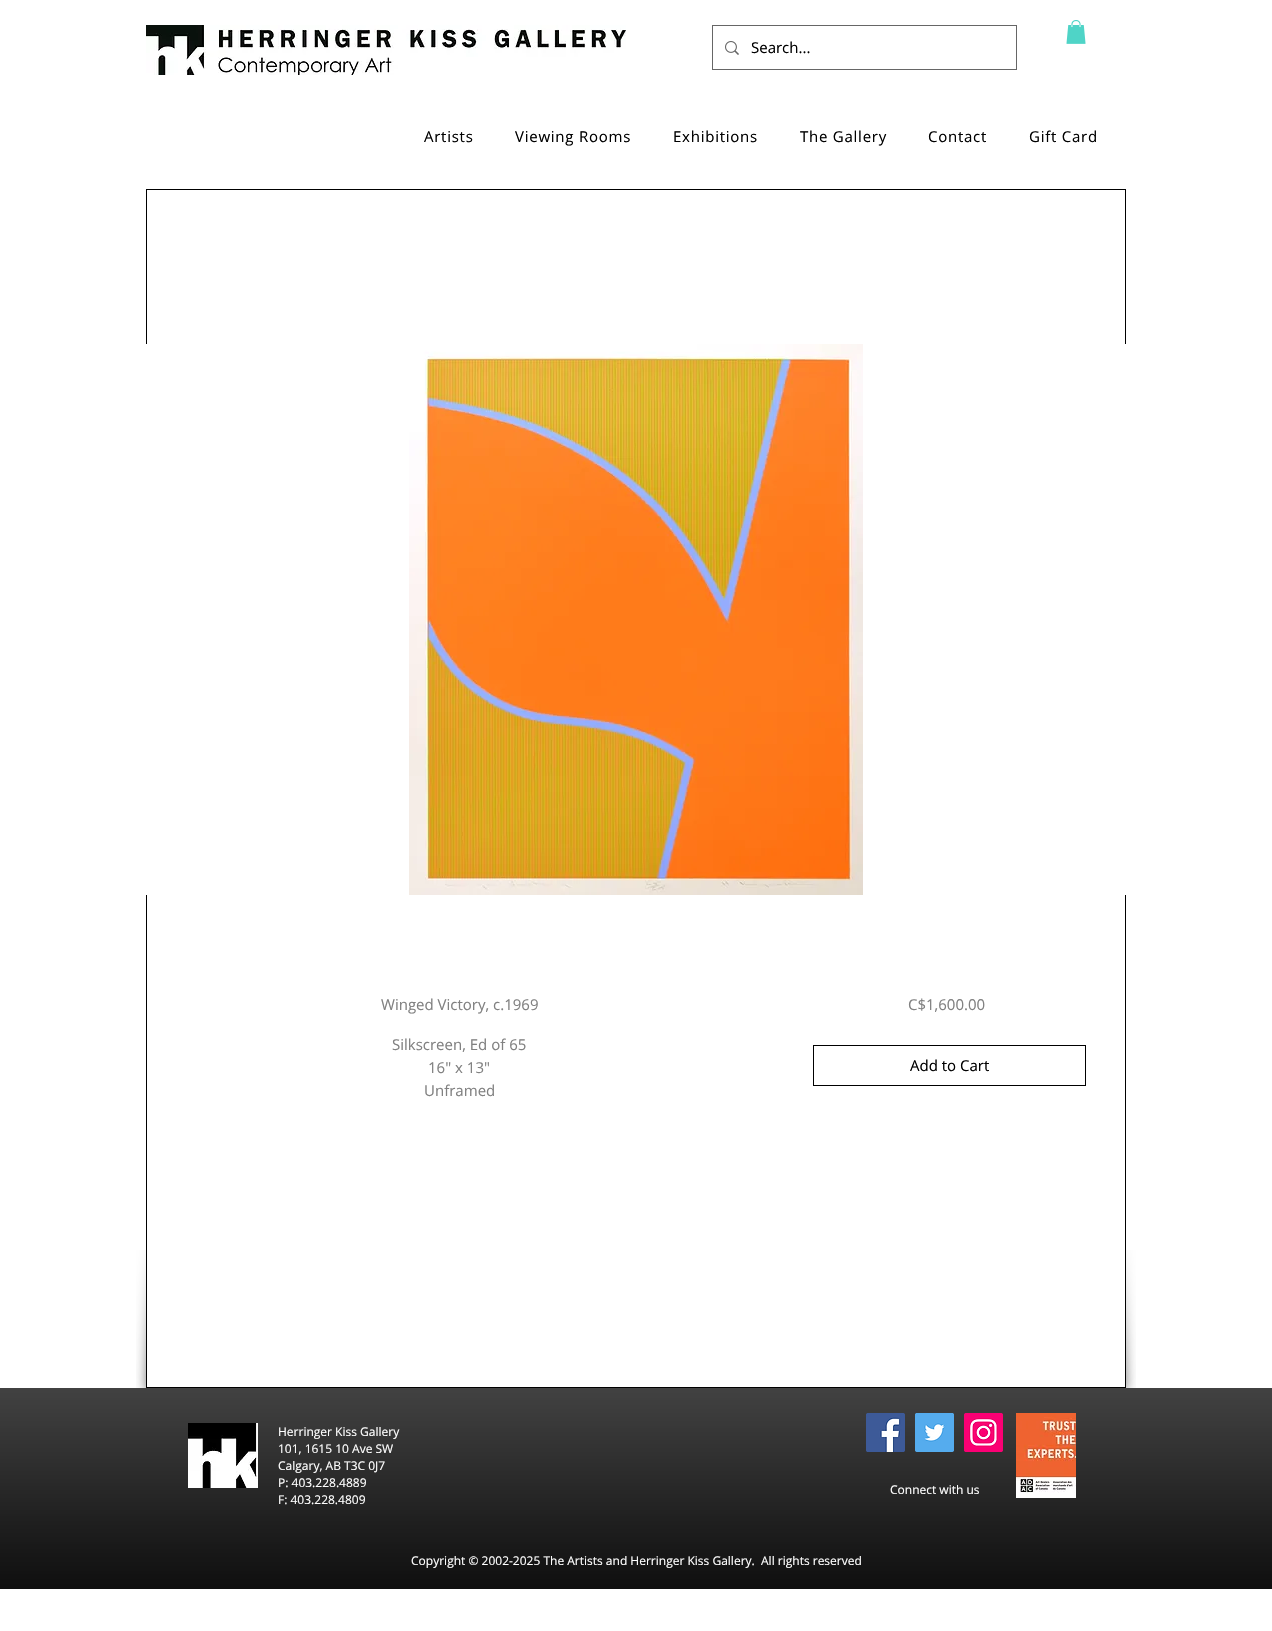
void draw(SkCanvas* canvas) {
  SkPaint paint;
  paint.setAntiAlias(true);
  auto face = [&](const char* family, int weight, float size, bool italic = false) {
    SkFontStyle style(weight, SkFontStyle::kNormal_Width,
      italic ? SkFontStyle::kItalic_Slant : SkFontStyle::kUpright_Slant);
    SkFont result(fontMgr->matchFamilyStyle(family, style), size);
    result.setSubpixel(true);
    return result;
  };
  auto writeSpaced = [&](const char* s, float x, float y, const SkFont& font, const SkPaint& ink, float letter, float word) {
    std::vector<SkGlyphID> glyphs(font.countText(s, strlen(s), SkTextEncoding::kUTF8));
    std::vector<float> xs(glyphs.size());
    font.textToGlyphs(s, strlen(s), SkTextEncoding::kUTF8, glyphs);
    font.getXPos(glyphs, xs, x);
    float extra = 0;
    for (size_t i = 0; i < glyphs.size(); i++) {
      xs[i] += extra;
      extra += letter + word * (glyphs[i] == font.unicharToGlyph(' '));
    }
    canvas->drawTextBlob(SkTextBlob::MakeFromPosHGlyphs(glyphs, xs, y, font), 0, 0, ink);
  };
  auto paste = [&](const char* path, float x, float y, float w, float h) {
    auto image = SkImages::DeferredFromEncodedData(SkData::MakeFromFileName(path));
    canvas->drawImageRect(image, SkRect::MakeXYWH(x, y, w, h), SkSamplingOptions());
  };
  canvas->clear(0xffffffff);
  paste("img/1.png", 146, 25, 480, 50);
  paint.setStroke(true);
  paint.setStrokeWidth(1);
  paint.setColor(0xff666666);
  canvas->drawRect(SkRect::MakeXYWH(712.5f, 25.5f, 304, 44), paint);
  paste("img/2.png", 725, 41, 14, 14);
  paste("img/3.png", 1066, 20, 20, 24);
  paste("img/4.png", 136, 1250, 10, 138);
  paint.setColor(0xff000000);
  canvas->drawRect(SkRect::MakeXYWH(146.5f, 189.5f, 979, 1198), paint);
  paste("img/5.png", 1126, 1250, 10, 138);
  paint.setStroke(false);
  paint.setColor(0xffffffff);
  canvas->drawRect(SkRect::MakeXYWH(146, 344, 980, 551), paint);
  paste("img/6.png", 409, 344, 454, 551);
  paint.setStroke(true);
  paint.setColor(0xff000000);
  canvas->drawRect(SkRect::MakeXYWH(813.5f, 1045.5f, 272, 40), paint);
  paint.setStroke(false);
  canvas->drawRect(SkRect::MakeXYWH(0, 1388, 1272, 201), paint);
  paste("img/7.png", 0, 1388, 1272, 201);
  paste("img/8.png", 188, 1423, 70, 65);
  paste("img/9.png", 866, 1413, 39, 39);
  paste("img/10.png", 915, 1413, 39, 39);
  paste("img/11.png", 964, 1413, 39, 39);
  paste("img/12.png", 1016, 1413, 60, 85);
  auto f0 = face("Open Sans", 400, 15);
  canvas->drawString("Search...", 751, 53, f0, paint);
  {
    const struct { const char* s; float x, y; } items[] = {
      {"Artists", 424, 142},
      {"Viewing Rooms", 515, 142},
      {"Exhibitions", 673, 142},
      {"The Gallery", 800, 142},
      {"Contact", 928, 142},
      {"Gift Card", 1029, 142},
    };
    for (auto [s, x, y] : items) {
      writeSpaced(s, x, y, f0, paint, 0.75f, 0);
    }
  }
  paint.setColor(0xff818181);
  {
    const struct { const char* s; float x, y; } items[] = {
      {"Winged Victory, c.1969", 381, 1010},
      {"Silkscreen, Ed of 65", 392, 1050},
      {"16\" x 13\"", 428, 1073},
      {"Unframed", 424, 1096},
      {"C$1,600.00", 908, 1010},
    };
    for (auto [s, x, y] : items) {
      canvas->drawString(s, x, y, f0, paint);
    }
  }
  paint.setColor(0xff000000);
  canvas->drawString("Add to Cart", 910, 1071, f0, paint);
  auto f1 = face("Open Sans", 400, 12);
  paint.setColor(0xffffffff);
  {
    const struct { const char* s; float x, y; } items[] = {
      {"Herringer Kiss Gallery", 278, 1436},
      {"101, 1615 10 Ave SW", 278, 1453},
      {"Calgary, AB T3C 0J7", 278, 1470},
      {"P: 403.228.4889", 278, 1487},
      {"F: 403.228.4809", 278, 1504},
      {"Connect with us", 890, 1494},
      {"Copyright © 2002-2025 The Artists and Herringer Kiss Gallery.  All rights reserved", 411, 1565},
    };
    for (auto [s, x, y] : items) {
      canvas->drawString(s, x, y, f1, paint);
    }
  }
}
